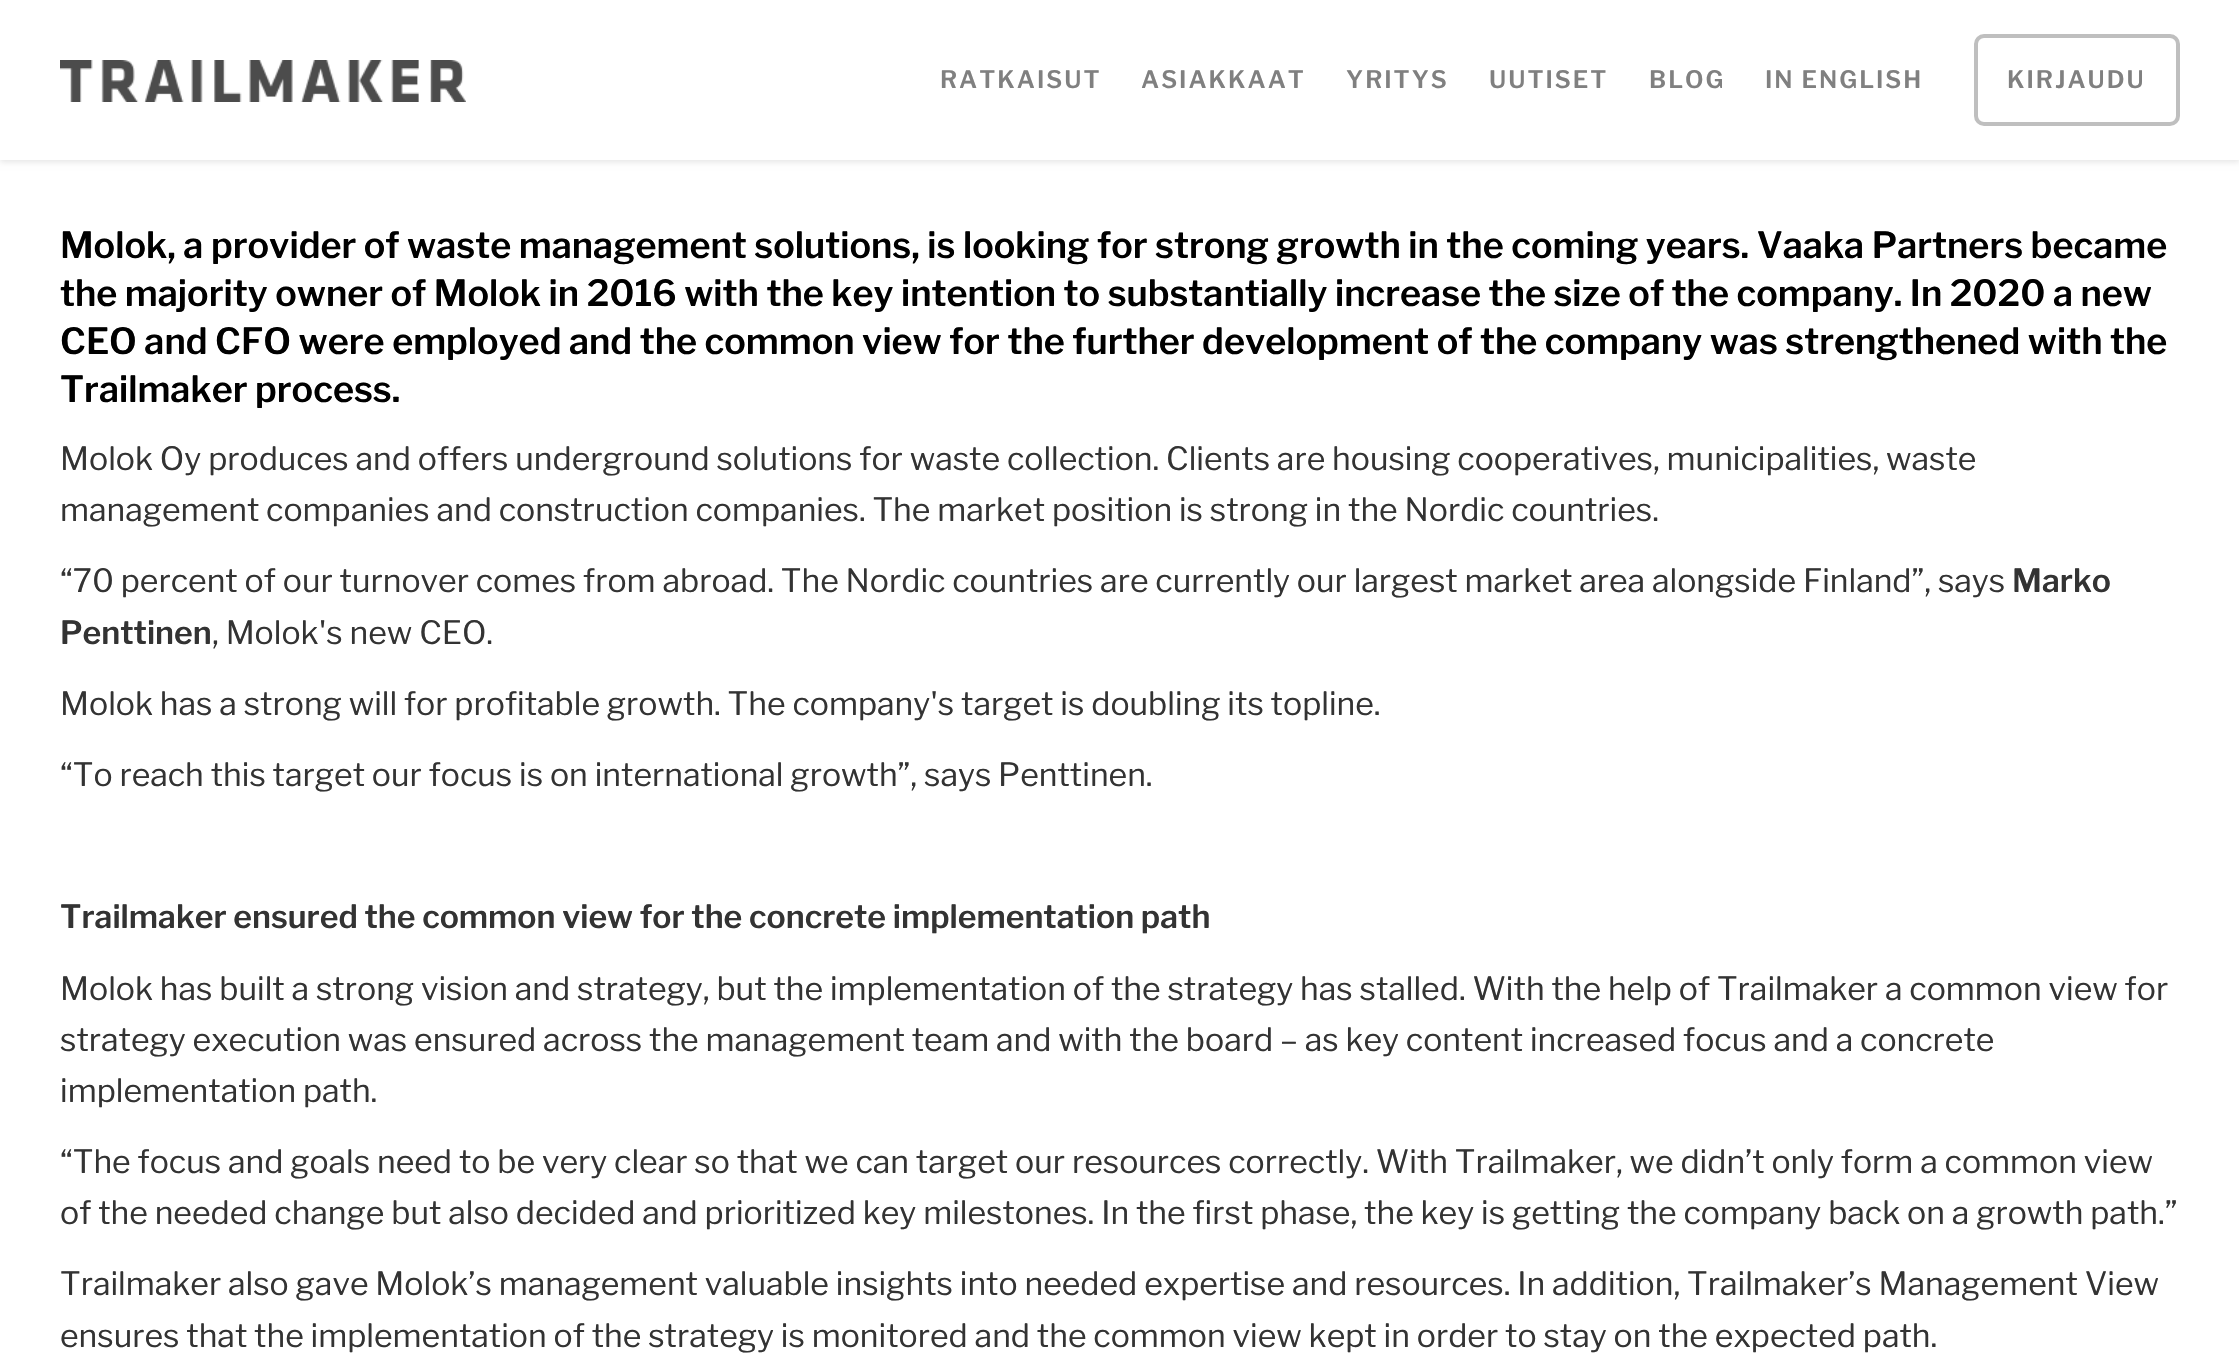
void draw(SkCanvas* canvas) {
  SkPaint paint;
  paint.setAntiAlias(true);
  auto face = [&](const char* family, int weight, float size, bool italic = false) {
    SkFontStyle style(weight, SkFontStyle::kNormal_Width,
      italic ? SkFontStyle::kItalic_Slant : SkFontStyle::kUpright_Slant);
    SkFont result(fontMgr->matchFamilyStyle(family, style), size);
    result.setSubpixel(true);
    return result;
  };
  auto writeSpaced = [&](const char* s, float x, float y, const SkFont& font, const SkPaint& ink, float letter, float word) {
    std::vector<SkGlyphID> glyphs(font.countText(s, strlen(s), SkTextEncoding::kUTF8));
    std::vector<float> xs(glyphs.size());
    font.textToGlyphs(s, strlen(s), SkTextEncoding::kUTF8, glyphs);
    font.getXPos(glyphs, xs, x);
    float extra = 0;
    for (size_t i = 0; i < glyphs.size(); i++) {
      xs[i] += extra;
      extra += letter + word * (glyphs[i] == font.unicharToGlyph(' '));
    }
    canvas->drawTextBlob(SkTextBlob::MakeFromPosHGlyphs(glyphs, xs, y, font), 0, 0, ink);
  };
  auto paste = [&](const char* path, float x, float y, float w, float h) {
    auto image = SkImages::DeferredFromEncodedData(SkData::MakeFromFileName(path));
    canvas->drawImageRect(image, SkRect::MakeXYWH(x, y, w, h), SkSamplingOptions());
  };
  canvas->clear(0xffffffff);
  paint.setColor(0x1a000000);
  paint.setMaskFilter(SkMaskFilter::MakeBlur(kNormal_SkBlurStyle, 3));
  canvas->drawRect(SkRect::MakeXYWH(0, 2, 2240, 160), paint);
  paint.setMaskFilter(nullptr);
  paint.setColor(0xffffffff);
  canvas->drawRect(SkRect::MakeXYWH(0, 0, 2239, 160), paint);
  paste("img/1.png", 60, 60, 406, 42);
  paint.setStroke(true);
  paint.setStrokeWidth(4);
  paint.setColor(0xffbfbfbf);
  canvas->drawRoundRect(SkRect::MakeXYWH(1976, 36, 202, 88), 8, 8, paint);
  auto f0 = face("Libre Franklin", 600, 24);
  paint.setStroke(false);
  paint.setColor(0xff808080);
  {
    const struct { const char* s; float x, y; } items[] = {
      {"RATKAISUT", 940, 88},
      {"ASIAKKAAT", 1141, 88},
      {"YRITYS", 1346, 88},
      {"UUTISET", 1489, 88},
      {"BLOG", 1649, 88},
      {"IN ENGLISH", 1765, 88},
      {"KIRJAUDU", 2007, 88},
    };
    for (auto [s, x, y] : items) {
      writeSpaced(s, x, y, f0, paint, 2, 0);
    }
  }
  auto f1 = face("Libre Franklin", 600, 36);
  paint.setColor(0xff000000);
  {
    const struct { const char* s; float x, y; } items[] = {
      {"Molok, a provider of waste management solutions, is looking for strong growth in the coming years. Vaaka Partners became", 60, 258},
      {"the majority owner of Molok in 2016 with the key intention to substantially increase the size of the company. In 2020 a new", 60, 306},
      {"CEO and CFO were employed and the common view for the further development of the company was strengthened with the", 60, 354},
      {"Trailmaker process.", 60, 402},
    };
    for (auto [s, x, y] : items) {
      canvas->drawString(s, x, y, f1, paint);
    }
  }
  auto f2 = face("Libre Franklin", 400, 32);
  paint.setColor(0xff333333);
  {
    const struct { const char* s; float x, y; } items[] = {
      {"Molok Oy produces and offers underground solutions for waste collection. Clients are housing cooperatives, municipalities, waste", 60, 470},
      {"management companies and construction companies. The market position is strong in the Nordic countries.", 60, 521},
      {"“70 percent of our turnover comes from abroad. The Nordic countries are currently our largest market area alongside Finland”, says", 60, 592},
    };
    for (auto [s, x, y] : items) {
      canvas->drawString(s, x, y, f2, paint);
    }
  }
  auto f3 = face("Libre Franklin", 600, 32);
  canvas->drawString("Marko", 2012, 592, f3, paint);
  canvas->drawString("Penttinen", 60, 644, f3, paint);
  {
    const struct { const char* s; float x, y; } items[] = {
      {", Molok's new CEO.", 212, 644},
      {"Molok has a strong will for profitable growth. The company's target is doubling its topline.", 60, 715},
      {"“To reach this target our focus is on international growth”, says Penttinen.", 60, 786},
    };
    for (auto [s, x, y] : items) {
      canvas->drawString(s, x, y, f2, paint);
    }
  }
  canvas->drawString("Trailmaker ensured the common view for the concrete implementation path", 60, 928, f3, paint);
  {
    const struct { const char* s; float x, y; } items[] = {
      {"Molok has built a strong vision and strategy, but the implementation of the strategy has stalled. With the help of Trailmaker a common view for", 60, 1000},
      {"strategy execution was ensured across the management team and with the board – as key content increased focus and a concrete", 60, 1051},
      {"implementation path.", 60, 1102},
      {"“The focus and goals need to be very clear so that we can target our resources correctly. With Trailmaker, we didn’t only form a common view", 60, 1173},
      {"of the needed change but also decided and prioritized key milestones. In the first phase, the key is getting the company back on a growth path.”", 60, 1224},
      {"Trailmaker also gave Molok’s management valuable insights into needed expertise and resources. In addition, Trailmaker’s Management View", 60, 1295},
      {"ensures that the implementation of the strategy is monitored and the common view kept in order to stay on the expected path.", 60, 1347},
    };
    for (auto [s, x, y] : items) {
      canvas->drawString(s, x, y, f2, paint);
    }
  }
}
